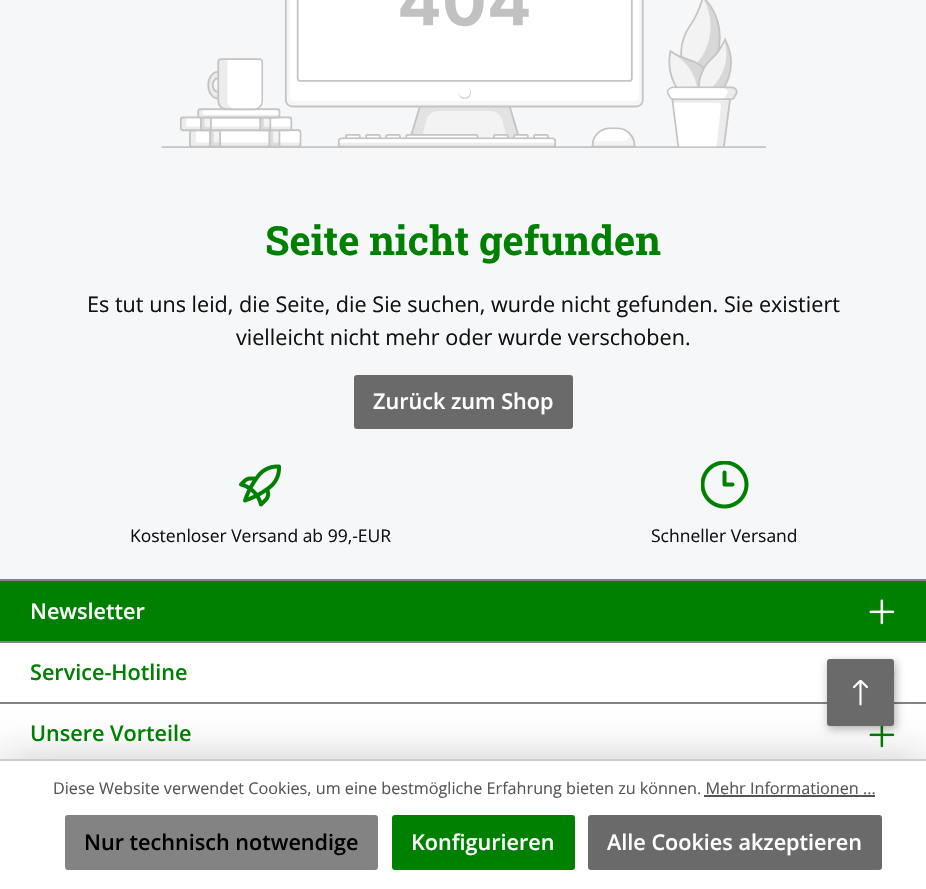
void draw(SkCanvas* canvas) {
  SkPaint paint;
  paint.setAntiAlias(true);
  auto face = [&](const char* family, int weight, float size, bool italic = false) {
    SkFontStyle style(weight, SkFontStyle::kNormal_Width,
      italic ? SkFontStyle::kItalic_Slant : SkFontStyle::kUpright_Slant);
    SkFont result(fontMgr->matchFamilyStyle(family, style), size);
    result.setSubpixel(true);
    return result;
  };
  auto paste = [&](const char* path, float x, float y, float w, float h) {
    auto image = SkImages::DeferredFromEncodedData(SkData::MakeFromFileName(path));
    canvas->drawImageRect(image, SkRect::MakeXYWH(x, y, w, h), SkSamplingOptions());
  };
  canvas->clear(0xfff6f7f9);
  paste("img/1.png", 161, 0, 605, 148);
  paint.setColor(0xff6a6a6a);
  canvas->drawRoundRect(SkRect::MakeXYWH(355, 376, 217, 52), 2, 2, paint);
  paint.setStroke(true);
  paint.setStrokeWidth(2);
  canvas->drawRoundRect(SkRect::MakeXYWH(355, 376, 217, 52), 2, 2, paint);
  paste("img/2.png", 239, 464, 42, 43);
  paste("img/3.png", 701, 461, 48, 48);
  paint.setStroke(false);
  {
    const struct { float x, y, w, h; SkColor color; } items[] = {
      {0, 643, 926, 116, 0xffffffff},
      {0, 581, 926, 60, 0xff008000},
      {0, 579, 926, 2, 0xff838383},
      {0, 641, 926, 2, 0xff838383},
    };
    for (auto [x, y, w, h, color] : items) {
      paint.setColor(color);
      canvas->drawRect(SkRect::MakeXYWH(x, y, w, h), paint);
    }
  }
  paste("img/4.png", 869, 599, 26, 26);
  canvas->drawRect(SkRect::MakeXYWH(0, 702, 926, 2), paint);
  paste("img/5.png", 894, 672, 1, 2);
  paste("img/6.png", 869, 726, 26, 22);
  paint.setColor(0x4d000000);
  paint.setMaskFilter(SkMaskFilter::MakeBlur(kNormal_SkBlurStyle, 4.5f));
  canvas->drawRoundRect(SkRect::MakeXYWH(828, 662, 68, 67), 3, 3, paint);
  paint.setMaskFilter(nullptr);
  paint.setColor(0xff6a6a6a);
  canvas->drawRoundRect(SkRect::MakeXYWH(828, 660, 65, 65), 2, 2, paint);
  paint.setStroke(true);
  canvas->drawRoundRect(SkRect::MakeXYWH(828, 660, 65, 65), 2, 2, paint);
  paste("img/7.png", 852, 680, 16, 26);
  paint.setStroke(false);
  paint.setColor(0x33000000);
  paint.setMaskFilter(SkMaskFilter::MakeBlur(kNormal_SkBlurStyle, 22.5f));
  canvas->drawRect(SkRect::MakeXYWH(0, 759, 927, 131), paint);
  paint.setMaskFilter(nullptr);
  {
    const struct { float x, y, w, h; SkColor color; } items[] = {
      {0, 761, 926, 128, 0xffffffff},
      {0, 759, 926, 2, 0xffcccccc},
      {704, 795, 171, 2, 0xff555555},
    };
    for (auto [x, y, w, h, color] : items) {
      paint.setColor(color);
      canvas->drawRect(SkRect::MakeXYWH(x, y, w, h), paint);
    }
  }
  paint.setColor(0xff838383);
  canvas->drawRoundRect(SkRect::MakeXYWH(66, 816, 311, 53), 2, 2, paint);
  paint.setStroke(true);
  canvas->drawRoundRect(SkRect::MakeXYWH(66, 816, 311, 53), 2, 2, paint);
  paint.setStroke(false);
  paint.setColor(0xff008000);
  canvas->drawRoundRect(SkRect::MakeXYWH(393, 816, 181, 53), 2, 2, paint);
  paint.setStroke(true);
  canvas->drawRoundRect(SkRect::MakeXYWH(393, 816, 181, 53), 2, 2, paint);
  paint.setStroke(false);
  paint.setColor(0xff6a6a6a);
  canvas->drawRoundRect(SkRect::MakeXYWH(589, 816, 292, 53), 2, 2, paint);
  paint.setStroke(true);
  canvas->drawRoundRect(SkRect::MakeXYWH(589, 816, 292, 53), 2, 2, paint);
  auto f0 = face("Roboto Slab", 700, 40.25f);
  paint.setStroke(false);
  paint.setColor(0xff008000);
  canvas->drawString("Seite nicht gefunden", 265, 255, f0, paint);
  auto f1 = face("Open Sans", 400, 21.6f);
  paint.setColor(0xff111111);
  canvas->drawString("Es tut uns leid, die Seite, die Sie suchen, wurde nicht gefunden. Sie existiert", 87, 312, f1, paint);
  canvas->drawString("vielleicht nicht mehr oder wurde verschoben.", 236, 345, f1, paint);
  auto f2 = face("Open Sans", 600, 21.6f);
  paint.setColor(0xffffffff);
  canvas->drawString("Zurück zum Shop", 373, 409, f2, paint);
  auto f3 = face("Open Sans", 400, 17.5f);
  paint.setColor(0xff111111);
  canvas->drawString("Kostenloser Versand ab 99,-EUR", 130, 542, f3, paint);
  canvas->drawString("Schneller Versand", 651, 542, f3, paint);
  paint.setColor(0xffffffff);
  canvas->drawString("Newsletter", 30, 619, f2, paint);
  paint.setColor(0xff008000);
  canvas->drawString("Service-Hotline", 30, 680, f2, paint);
  canvas->drawString("Unsere Vorteile", 30, 741, f2, paint);
  auto f4 = face("Open Sans", 400, 16.2f);
  paint.setColor(0xff555555);
  canvas->drawString("Diese Website verwendet Cookies, um eine bestmögliche Erfahrung bieten zu können. Mehr Informationen ...", 53, 794, f4, paint);
  paint.setColor(0xff000000);
  canvas->drawString("Nur technisch notwendige", 84, 850, f2, paint);
  paint.setColor(0xffffffff);
  canvas->drawString("Konfigurieren", 411, 850, f2, paint);
  canvas->drawString("Alle Cookies akzeptieren", 607, 850, f2, paint);
}
